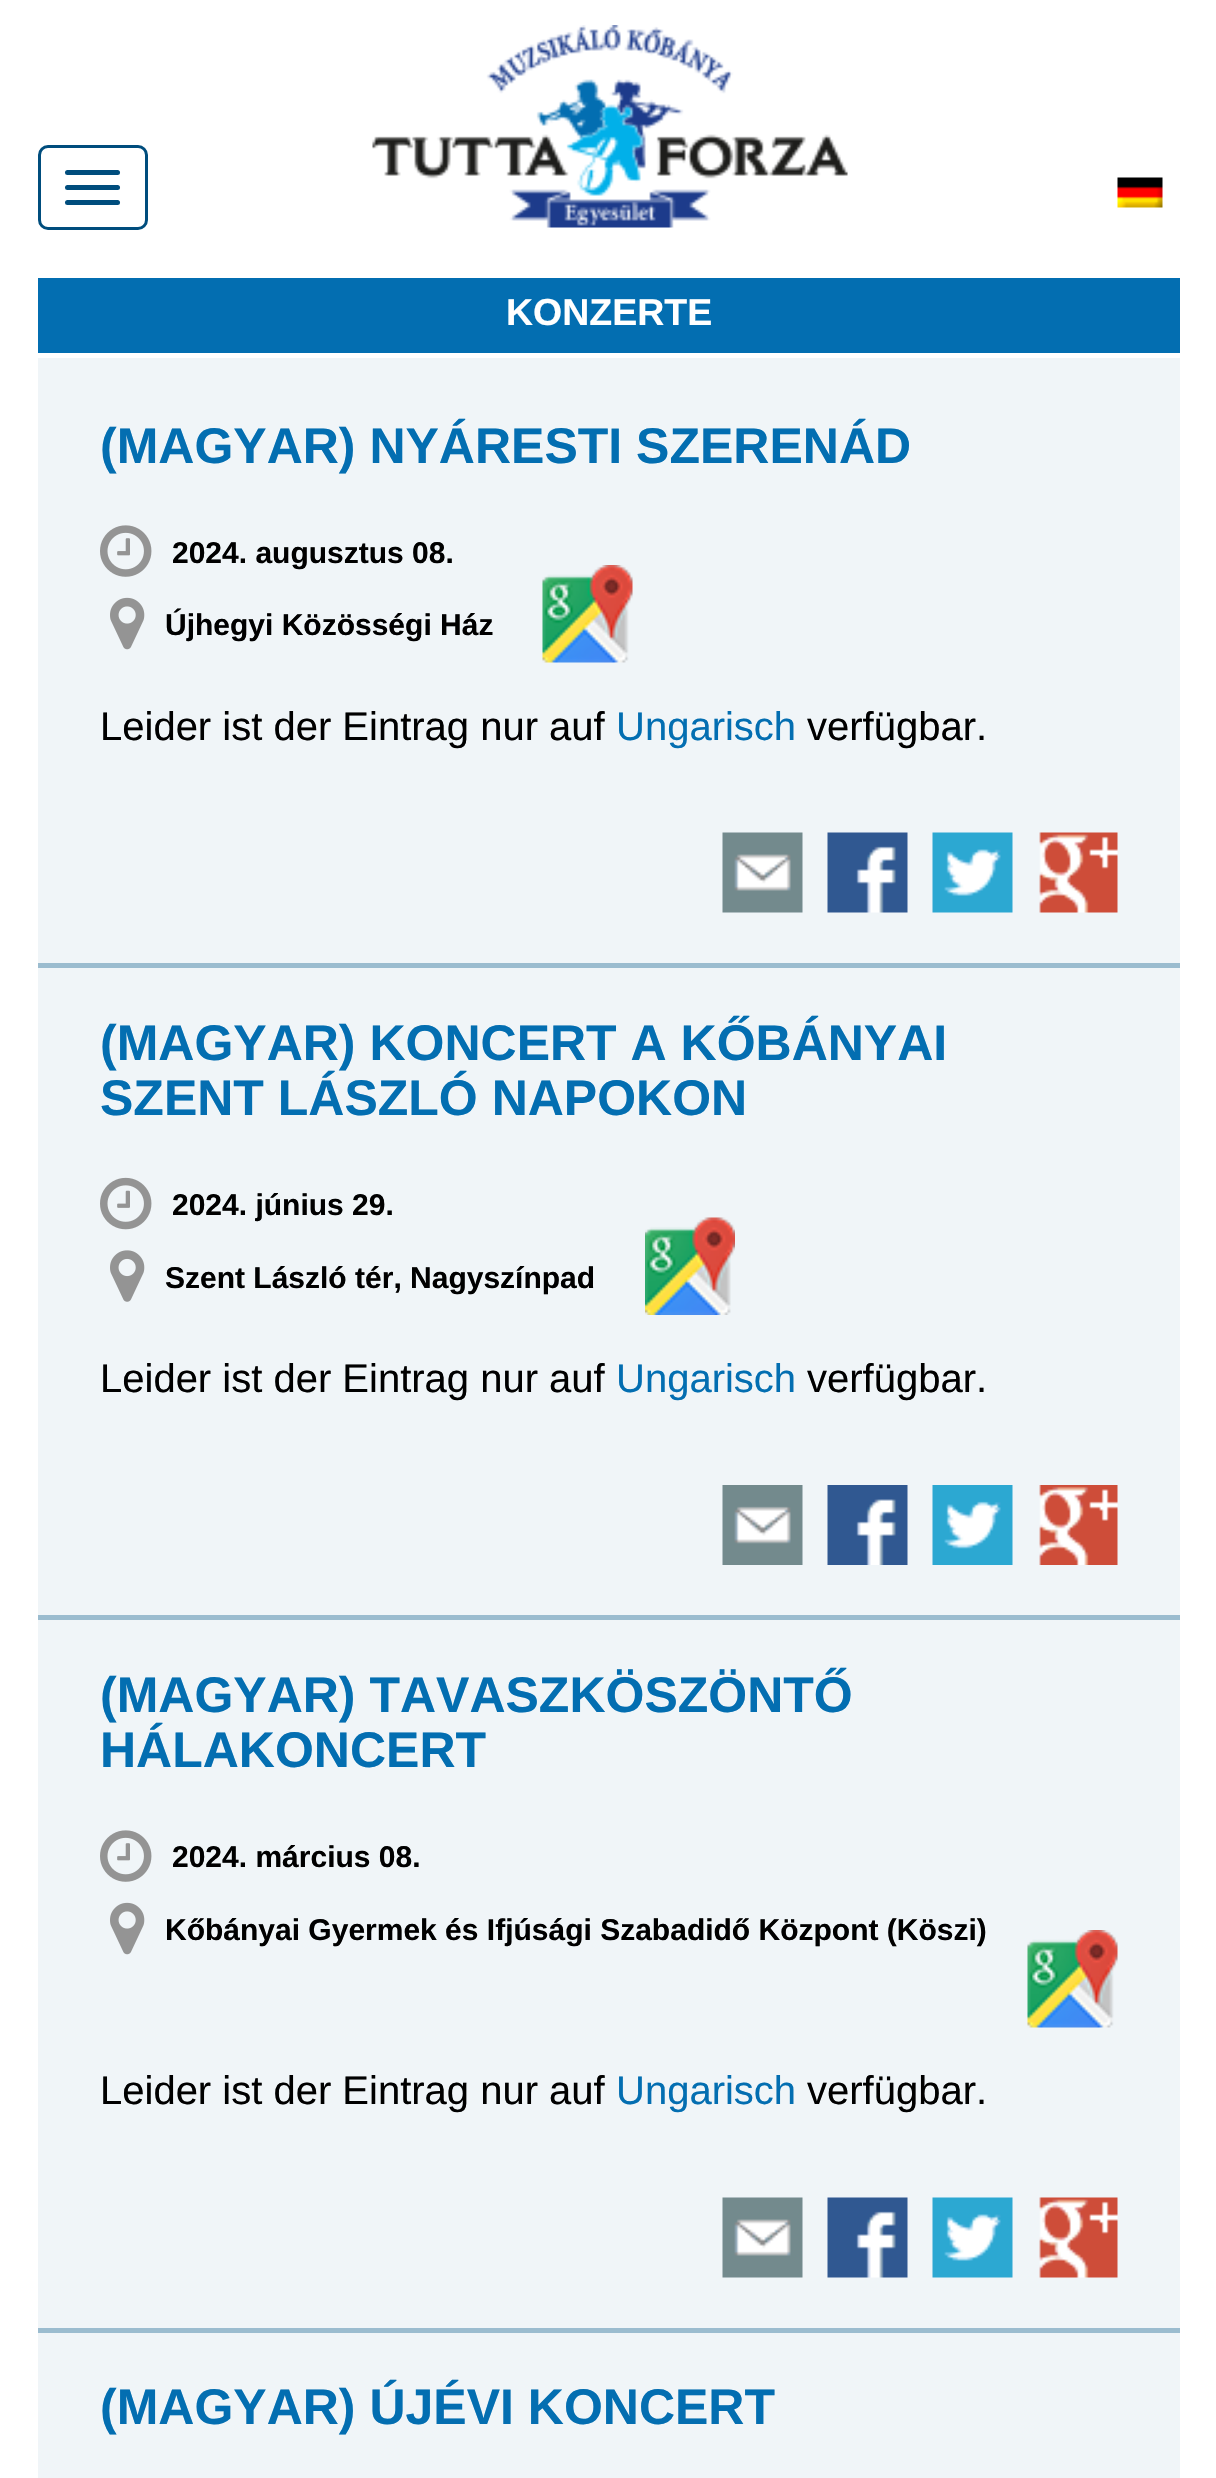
void draw(SkCanvas* canvas) {
  SkPaint paint;
  paint.setAntiAlias(true);
  auto face = [&](const char* family, int weight, float size, bool italic = false) {
    SkFontStyle style(weight, SkFontStyle::kNormal_Width,
      italic ? SkFontStyle::kItalic_Slant : SkFontStyle::kUpright_Slant);
    SkFont result(fontMgr->matchFamilyStyle(family, style), size);
    result.setSubpixel(true);
    return result;
  };
  auto paste = [&](const char* path, float x, float y, float w, float h) {
    auto image = SkImages::DeferredFromEncodedData(SkData::MakeFromFileName(path));
    canvas->drawImageRect(image, SkRect::MakeXYWH(x, y, w, h), SkSamplingOptions());
  };
  canvas->clear(0xffffffff);
  paint.setStroke(true);
  paint.setStrokeWidth(3);
  paint.setColor(0xff004d7d);
  canvas->drawRoundRect(SkRect::MakeXYWH(39.5f, 146.5f, 107, 82), 8.5f, 8.5f, paint);
  paint.setStroke(false);
  canvas->drawRoundRect(SkRect::MakeXYWH(65, 170, 55, 5), 2.5f, 2.5f, paint);
  canvas->drawRoundRect(SkRect::MakeXYWH(65, 185, 55, 5), 2.5f, 2.5f, paint);
  canvas->drawRoundRect(SkRect::MakeXYWH(65, 200, 55, 5), 2.5f, 2.5f, paint);
  paste("img/1.png", 372, 25, 476, 203);
  paste("img/2.png", 1117, 177, 46, 31);
  paint.setColor(0xff036eb1);
  canvas->drawRect(SkRect::MakeXYWH(38, 278, 1142, 75), paint);
  paint.setColor(0xfff0f5f8);
  canvas->drawRect(SkRect::MakeXYWH(38, 358, 1142, 2120), paint);
  paste("img/3.png", 100, 525, 52, 52);
  paste("img/4.png", 110, 597, 35, 53);
  paste("img/5.png", 542, 565, 91, 98);
  paste("img/6.png", 722, 832, 81, 81);
  paste("img/7.png", 827, 832, 81, 81);
  paste("img/8.png", 932, 832, 81, 81);
  paste("img/9.png", 1039, 832, 79, 81);
  paint.setColor(0xff9bbccf);
  canvas->drawRect(SkRect::MakeXYWH(38, 963, 1142, 5), paint);
  paste("img/10.png", 100, 1177, 52, 53);
  paste("img/11.png", 110, 1250, 35, 52);
  paste("img/12.png", 645, 1217, 90, 98);
  paste("img/13.png", 722, 1485, 81, 80);
  paste("img/14.png", 827, 1485, 81, 80);
  paste("img/15.png", 932, 1485, 81, 80);
  paste("img/16.png", 1039, 1485, 79, 80);
  canvas->drawRect(SkRect::MakeXYWH(38, 1615, 1142, 5), paint);
  paste("img/3.png", 100, 1830, 52, 52);
  paste("img/4.png", 110, 1902, 35, 53);
  paste("img/17.png", 1027, 1930, 91, 98);
  paste("img/6.png", 722, 2197, 81, 81);
  paste("img/7.png", 827, 2197, 81, 81);
  paste("img/8.png", 932, 2197, 81, 81);
  paste("img/9.png", 1039, 2197, 79, 81);
  canvas->drawRect(SkRect::MakeXYWH(38, 2328, 1142, 5), paint);
  auto f0 = face("Arimo", 700, 37.5f);
  paint.setColor(0xffffffff);
  canvas->drawString("KONZERTE", 506, 325, f0, paint);
  auto f1 = face("Arimo", 700, 50);
  paint.setColor(0xff036eb1);
  canvas->drawString("(MAGYAR) NYÁRESTI SZERENÁD", 100, 463, f1, paint);
  auto f2 = face("Arimo", 700, 30);
  paint.setColor(0xff000000);
  canvas->drawString("2024. augusztus 08.", 172, 563, f2, paint);
  canvas->drawString("Újhegyi Közösségi Ház", 165, 635, f2, paint);
  auto f3 = face("Arimo", 400, 40);
  canvas->drawString("Leider ist der Eintrag nur auf", 100, 740, f3, paint);
  paint.setColor(0xff036eb1);
  canvas->drawString("Ungarisch", 616, 740, f3, paint);
  paint.setColor(0xff000000);
  canvas->drawString("verfügbar.", 807, 740, f3, paint);
  paint.setColor(0xff036eb1);
  canvas->drawString("(MAGYAR) KONCERT A KŐBÁNYAI", 100, 1060, f1, paint);
  canvas->drawString("SZENT LÁSZLÓ NAPOKON", 100, 1115, f1, paint);
  paint.setColor(0xff000000);
  canvas->drawString("2024. június 29.", 172, 1215, f2, paint);
  canvas->drawString("Szent László tér, Nagyszínpad", 165, 1288, f2, paint);
  canvas->drawString("Leider ist der Eintrag nur auf", 100, 1392, f3, paint);
  paint.setColor(0xff036eb1);
  canvas->drawString("Ungarisch", 616, 1392, f3, paint);
  paint.setColor(0xff000000);
  canvas->drawString("verfügbar.", 807, 1392, f3, paint);
  paint.setColor(0xff036eb1);
  canvas->drawString("(MAGYAR) TAVASZKÖSZÖNTŐ", 100, 1712, f1, paint);
  canvas->drawString("HÁLAKONCERT", 100, 1767, f1, paint);
  paint.setColor(0xff000000);
  canvas->drawString("2024. március 08.", 172, 1867, f2, paint);
  canvas->drawString("Kőbányai Gyermek és Ifjúsági Szabadidő Központ (Köszi)", 165, 1940, f2, paint);
  canvas->drawString("Leider ist der Eintrag nur auf", 100, 2104, f3, paint);
  paint.setColor(0xff036eb1);
  canvas->drawString("Ungarisch", 616, 2104, f3, paint);
  paint.setColor(0xff000000);
  canvas->drawString("verfügbar.", 807, 2104, f3, paint);
  paint.setColor(0xff036eb1);
  canvas->drawString("(MAGYAR) ÚJÉVI KONCERT", 100, 2424, f1, paint);
}
